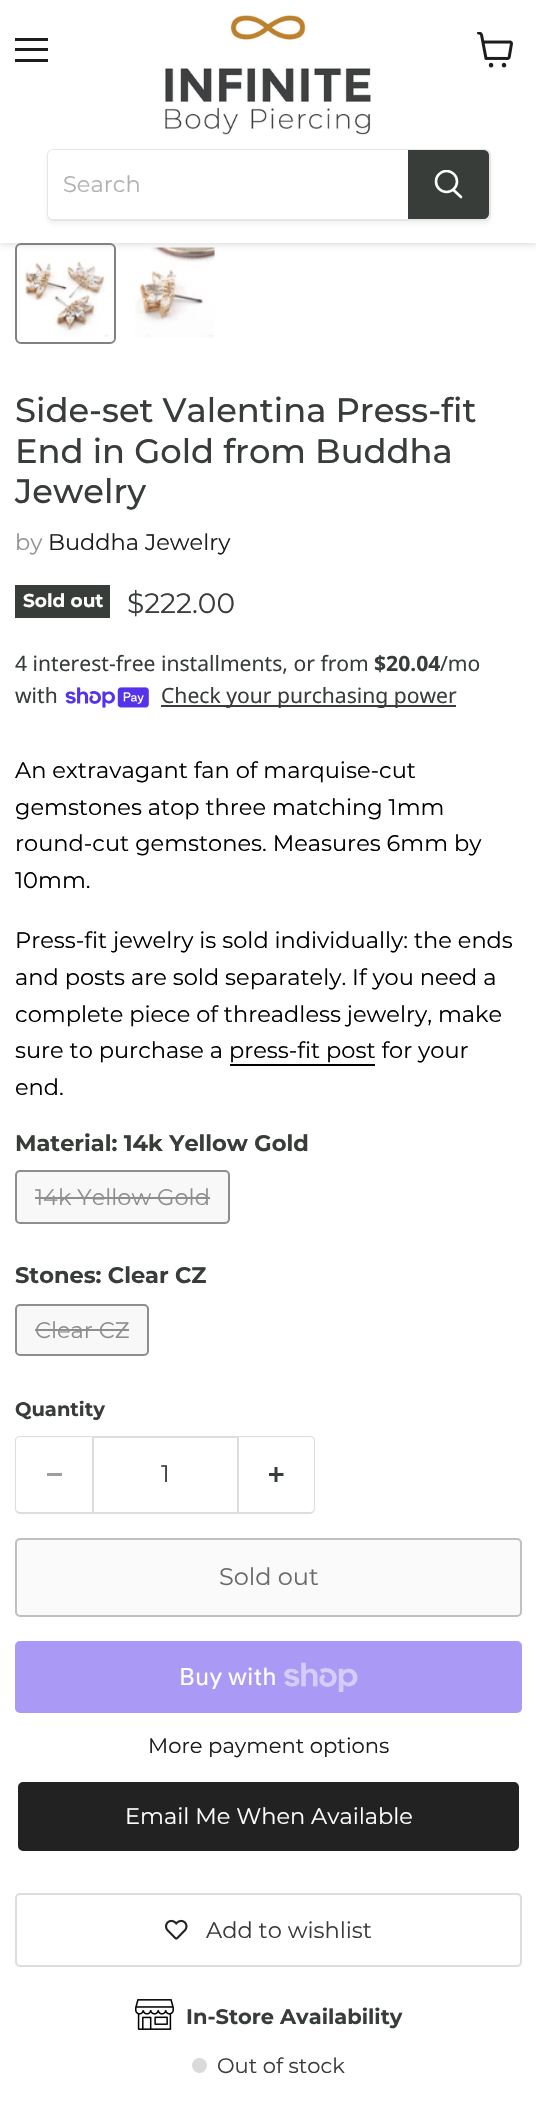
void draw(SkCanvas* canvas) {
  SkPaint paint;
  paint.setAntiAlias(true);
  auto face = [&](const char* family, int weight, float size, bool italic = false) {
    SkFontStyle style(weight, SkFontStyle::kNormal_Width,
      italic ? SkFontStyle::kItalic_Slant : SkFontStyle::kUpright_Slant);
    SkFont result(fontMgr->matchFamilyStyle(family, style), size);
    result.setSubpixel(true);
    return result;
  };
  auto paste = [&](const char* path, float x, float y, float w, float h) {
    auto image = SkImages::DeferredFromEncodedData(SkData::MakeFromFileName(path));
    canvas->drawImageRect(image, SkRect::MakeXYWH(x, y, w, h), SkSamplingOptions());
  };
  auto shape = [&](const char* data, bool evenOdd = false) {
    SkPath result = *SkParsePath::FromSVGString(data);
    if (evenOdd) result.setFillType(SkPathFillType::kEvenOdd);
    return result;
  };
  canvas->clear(0xffffffff);
  paint.setStroke(true);
  paint.setStrokeWidth(2);
  paint.setColor(0xff818181);
  canvas->drawRoundRect(SkRect::MakeXYWH(16, 244, 99, 99), 5, 5, paint);
  paste("img/4.png", 135, 247, 80, 91);
  paint.setStroke(false);
  paint.setColor(0x40808080);
  paint.setMaskFilter(SkMaskFilter::MakeBlur(kNormal_SkBlurStyle, 3));
  canvas->drawRect(SkRect::MakeXYWH(0, 2, 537, 243), paint);
  paint.setMaskFilter(nullptr);
  {
    const struct { float x, y, w, h; SkColor color; } items[] = {
      {0, 0, 536, 243, 0xffffffff},
      {15, 38, 33, 3, 0xff1d1d1d},
      {15, 48, 33, 3, 0xff1d1d1d},
      {15, 59, 33, 3, 0xff1d1d1d},
    };
    for (auto [x, y, w, h, color] : items) {
      paint.setColor(color);
      canvas->drawRect(SkRect::MakeXYWH(x, y, w, h), paint);
    }
  }
  paste("img/1.png", 477, 32, 36, 36);
  paste("img/2.png", 165, 15, 206, 120);
  canvas->save();
  canvas->clipPath(shape("M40 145H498V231H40ZM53 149H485C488.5 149 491 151.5 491 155V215C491 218.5 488.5 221 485 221H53C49.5 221 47 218.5 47 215V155C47 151.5 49.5 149 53 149Z", true), true);
  paint.setColor(0x1c808080);
  paint.setMaskFilter(SkMaskFilter::MakeBlur(kNormal_SkBlurStyle, 2));
  canvas->drawRoundRect(SkRect::MakeXYWH(47, 152, 444, 72), 6, 6, paint);
  paint.setMaskFilter(nullptr);
  canvas->restore();
  paint.setStroke(true);
  paint.setColor(0x33808080);
  canvas->drawRoundRect(SkRect::MakeXYWH(48, 150, 442, 70), 5, 5, paint);
  paint.setStroke(false);
  paint.setColor(0xffffffff);
  canvas->drawPath(shape("M53 150H408V219H53C50 219 48 217 48 214V155C48 152 50 150 53 150Z"), paint);
  paint.setColor(0xff393d3a);
  canvas->drawPath(shape("M409 151H484C486 151 488 153 488 155V214C488 216 486 218 484 218H409Z"), paint);
  paint.setStroke(true);
  canvas->drawPath(shape("M409 151H484C486 151 488 153 488 155V214C488 216 486 218 484 218H409Z"), paint);
  paint.setStrokeWidth(2.6f);
  paint.setStrokeCap(SkPaint::kRound_Cap);
  paint.setColor(0xffffffff);
  canvas->drawPath(shape("M461 197L453.5 190"), paint);
  canvas->save();
  canvas->clipRect(SkRect::MakeXYWH(434, 170, 30, 31));
  paint.setStrokeCap(SkPaint::kButt_Cap);
  canvas->drawCircle(446.5f, 181.5f, 10.5f, paint);
  canvas->restore();
  paste("img/3.png", 23, 260, 86, 77);
  paint.setStroke(false);
  paint.setColor(0xff393d3a);
  canvas->drawRect(SkRect::MakeXYWH(15, 585, 95, 33), paint);
  paste("img/5.png", 65, 687, 84, 21);
  canvas->drawRect(SkRect::MakeXYWH(161, 705, 295, 2), paint);
  paint.setColor(0xff000000);
  canvas->drawRect(SkRect::MakeXYWH(230, 1064, 145, 2), paint);
  paint.setColor(0xfff8f8f8);
  canvas->drawRoundRect(SkRect::MakeXYWH(16, 1171, 213, 52), 4, 4, paint);
  paint.setStroke(true);
  paint.setStrokeWidth(2);
  paint.setColor(0xff8e8e8e);
  canvas->drawRoundRect(SkRect::MakeXYWH(16, 1171, 213, 52), 4, 4, paint);
  paint.setStroke(false);
  canvas->drawRect(SkRect::MakeXYWH(35, 1197, 175, 2), paint);
  paint.setColor(0xfff8f8f8);
  canvas->drawRoundRect(SkRect::MakeXYWH(16, 1305, 132, 50), 4, 4, paint);
  paint.setStroke(true);
  paint.setColor(0xff8e8e8e);
  canvas->drawRoundRect(SkRect::MakeXYWH(16, 1305, 132, 50), 4, 4, paint);
  paint.setStroke(false);
  canvas->drawRect(SkRect::MakeXYWH(35, 1329, 94, 2), paint);
  paint.setColor(0xffdddddd);
  canvas->drawPath(shape("M20 1436H92V1514H20C17 1514 15 1511 15 1509V1440C15 1438 17 1436 20 1436ZM20 1437H92V1512H20C18 1512 16 1511 16 1509V1440C16 1438 18 1437 20 1437Z", true), paint);
  paint.setColor(0xff9c9e9d);
  canvas->drawRect(SkRect::MakeXYWH(47, 1473, 15, 3), paint);
  paint.setStroke(true);
  paint.setColor(0xffdddddd);
  canvas->drawRect(SkRect::MakeXYWH(93, 1437, 145, 76), paint);
  paint.setStroke(false);
  canvas->drawPath(shape("M238 1436H310C313 1436 315 1438 315 1440V1509C315 1511 313 1514 310 1514H238ZM238 1437H310C312 1437 314 1438 314 1440V1509C314 1511 312 1512 310 1512H238Z", true), paint);
  paste("img/6.png", 269, 1467, 15, 15);
  paint.setColor(0xfffafafa);
  canvas->drawRoundRect(SkRect::MakeXYWH(16, 1539, 505, 77), 4, 4, paint);
  paint.setStroke(true);
  paint.setColor(0xffc0c0c0);
  canvas->drawRoundRect(SkRect::MakeXYWH(16, 1539, 505, 77), 4, 4, paint);
  paint.setStroke(false);
  paint.setColor(0xffaa99f5);
  canvas->drawRoundRect(SkRect::MakeXYWH(15, 1641, 507, 72), 5, 5, paint);
  paste("img/7.png", 284, 1662, 74, 30);
  paint.setColor(0xff222222);
  canvas->drawRoundRect(SkRect::MakeXYWH(16.5f, 1780.5f, 504, 72), 6.5f, 6.5f, paint);
  paint.setStroke(true);
  paint.setStrokeWidth(3);
  paint.setColor(0xffffffff);
  canvas->drawRoundRect(SkRect::MakeXYWH(16.5f, 1780.5f, 504, 72), 6.5f, 6.5f, paint);
  paint.setStrokeWidth(2);
  paint.setColor(0xffdddddd);
  canvas->drawRoundRect(SkRect::MakeXYWH(16, 1894, 505, 72), 4, 4, paint);
  paste("img/8.png", 165, 1919, 23, 21);
  paste("img/9.png", 135, 1999, 39, 31);
  paint.setStroke(false);
  paint.setColor(0xffdadada);
  canvas->drawCircle(199.5f, 2065.5f, 7.5f, paint);
  auto f0 = face("Montserrat", 400, 22.5f);
  paint.setColor(0xffb0b1b0);
  canvas->drawString("Search", 63, 192, f0, paint);
  auto f1 = face("Montserrat", 500, 33.75f);
  paint.setColor(0xff393d3a);
  {
    const struct { const char* s; float x, y; } items[] = {
      {"Side-set Valentina Press-fit", 15, 422},
      {"End in Gold from Buddha", 15, 463},
      {"Jewelry", 15, 503},
    };
    for (auto [s, x, y] : items) {
      canvas->drawString(s, x, y, f1, paint);
    }
  }
  paint.setColor(0xff949494);
  canvas->drawString("by", 15, 550, f0, paint);
  paint.setColor(0xff1d1d1d);
  canvas->drawString("Buddha Jewelry", 48, 550, f0, paint);
  auto f2 = face("Montserrat", 700, 18.5f);
  paint.setColor(0xffffffff);
  canvas->drawString("Sold out", 23, 607, f2, paint);
  auto f3 = face("Montserrat", 400, 28);
  paint.setColor(0xff393d3a);
  canvas->drawString("$222.00", 127, 613, f3, paint);
  auto f4 = face("Noto Sans", 400, 21.1f);
  canvas->drawString("4 interest-free installments, or from", 15, 671, f4, paint);
  auto f5 = face("Noto Sans", 700, 21.1f);
  canvas->drawString("$20.04", 374, 671, f5, paint);
  {
    const struct { const char* s; float x, y; } items[] = {
      {"/mo", 440, 671},
      {"with", 15, 703},
      {"Check your purchasing power", 161, 703},
    };
    for (auto [s, x, y] : items) {
      canvas->drawString(s, x, y, f4, paint);
    }
  }
  paint.setColor(0xff000000);
  {
    const struct { const char* s; float x, y; } items[] = {
      {"An extravagant fan of marquise-cut", 15, 778},
      {"gemstones atop three matching 1mm", 15, 815},
      {"round-cut gemstones. Measures 6mm by", 15, 851},
      {"10mm.", 15, 888},
      {"Press-fit jewelry is sold individually: the ends", 15, 948},
      {"and posts are sold separately. If you need a", 15, 985},
      {"complete piece of threadless jewelry, make", 15, 1022},
      {"sure to purchase a press-fit post for your", 15, 1058},
      {"end.", 15, 1095},
    };
    for (auto [s, x, y] : items) {
      canvas->drawString(s, x, y, f0, paint);
    }
  }
  auto f6 = face("Montserrat", 700, 22.5f);
  paint.setColor(0xff393d3a);
  canvas->drawString("Material: 14k Yellow Gold", 15, 1151, f6, paint);
  paint.setColor(0xff8e8e8e);
  canvas->drawString("14k Yellow Gold", 35, 1205, f0, paint);
  paint.setColor(0xff393d3a);
  canvas->drawString("Stones: Clear CZ", 15, 1283, f6, paint);
  paint.setColor(0xff8e8e8e);
  canvas->drawString("Clear CZ", 35, 1338, f0, paint);
  auto f7 = face("Montserrat", 700, 19.5f);
  paint.setColor(0xff393d3a);
  canvas->drawString("Quantity", 15, 1416, f7, paint);
  auto f8 = face("Montserrat", 400, 24);
  canvas->drawString("1", 161, 1482, f8, paint);
  paint.setColor(0xff6a6a6a);
  canvas->drawString("Sold out", 219, 1585, f8, paint);
  auto f9 = face("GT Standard", 400, 24);
  paint.setColor(0xffffffff);
  canvas->drawString("Buy with", 179, 1685, f9, paint);
  auto f10 = face("Montserrat", 400, 21.1f);
  paint.setColor(0xff1d1d1d);
  canvas->drawString("More payment options", 148, 1753, f10, paint);
  paint.setColor(0xffffffff);
  canvas->drawString("Email Me When Available", 125, 1824, f0, paint);
  paint.setColor(0xff393d3a);
  canvas->drawString("Add to wishlist", 206, 1938, f0, paint);
  auto f11 = face("Montserrat", 700, 21);
  canvas->drawString("In-Store Availability", 186, 2024, f11, paint);
  auto f12 = face("Montserrat", 400, 21);
  canvas->drawString("Out of stock", 217, 2073, f12, paint);
}
